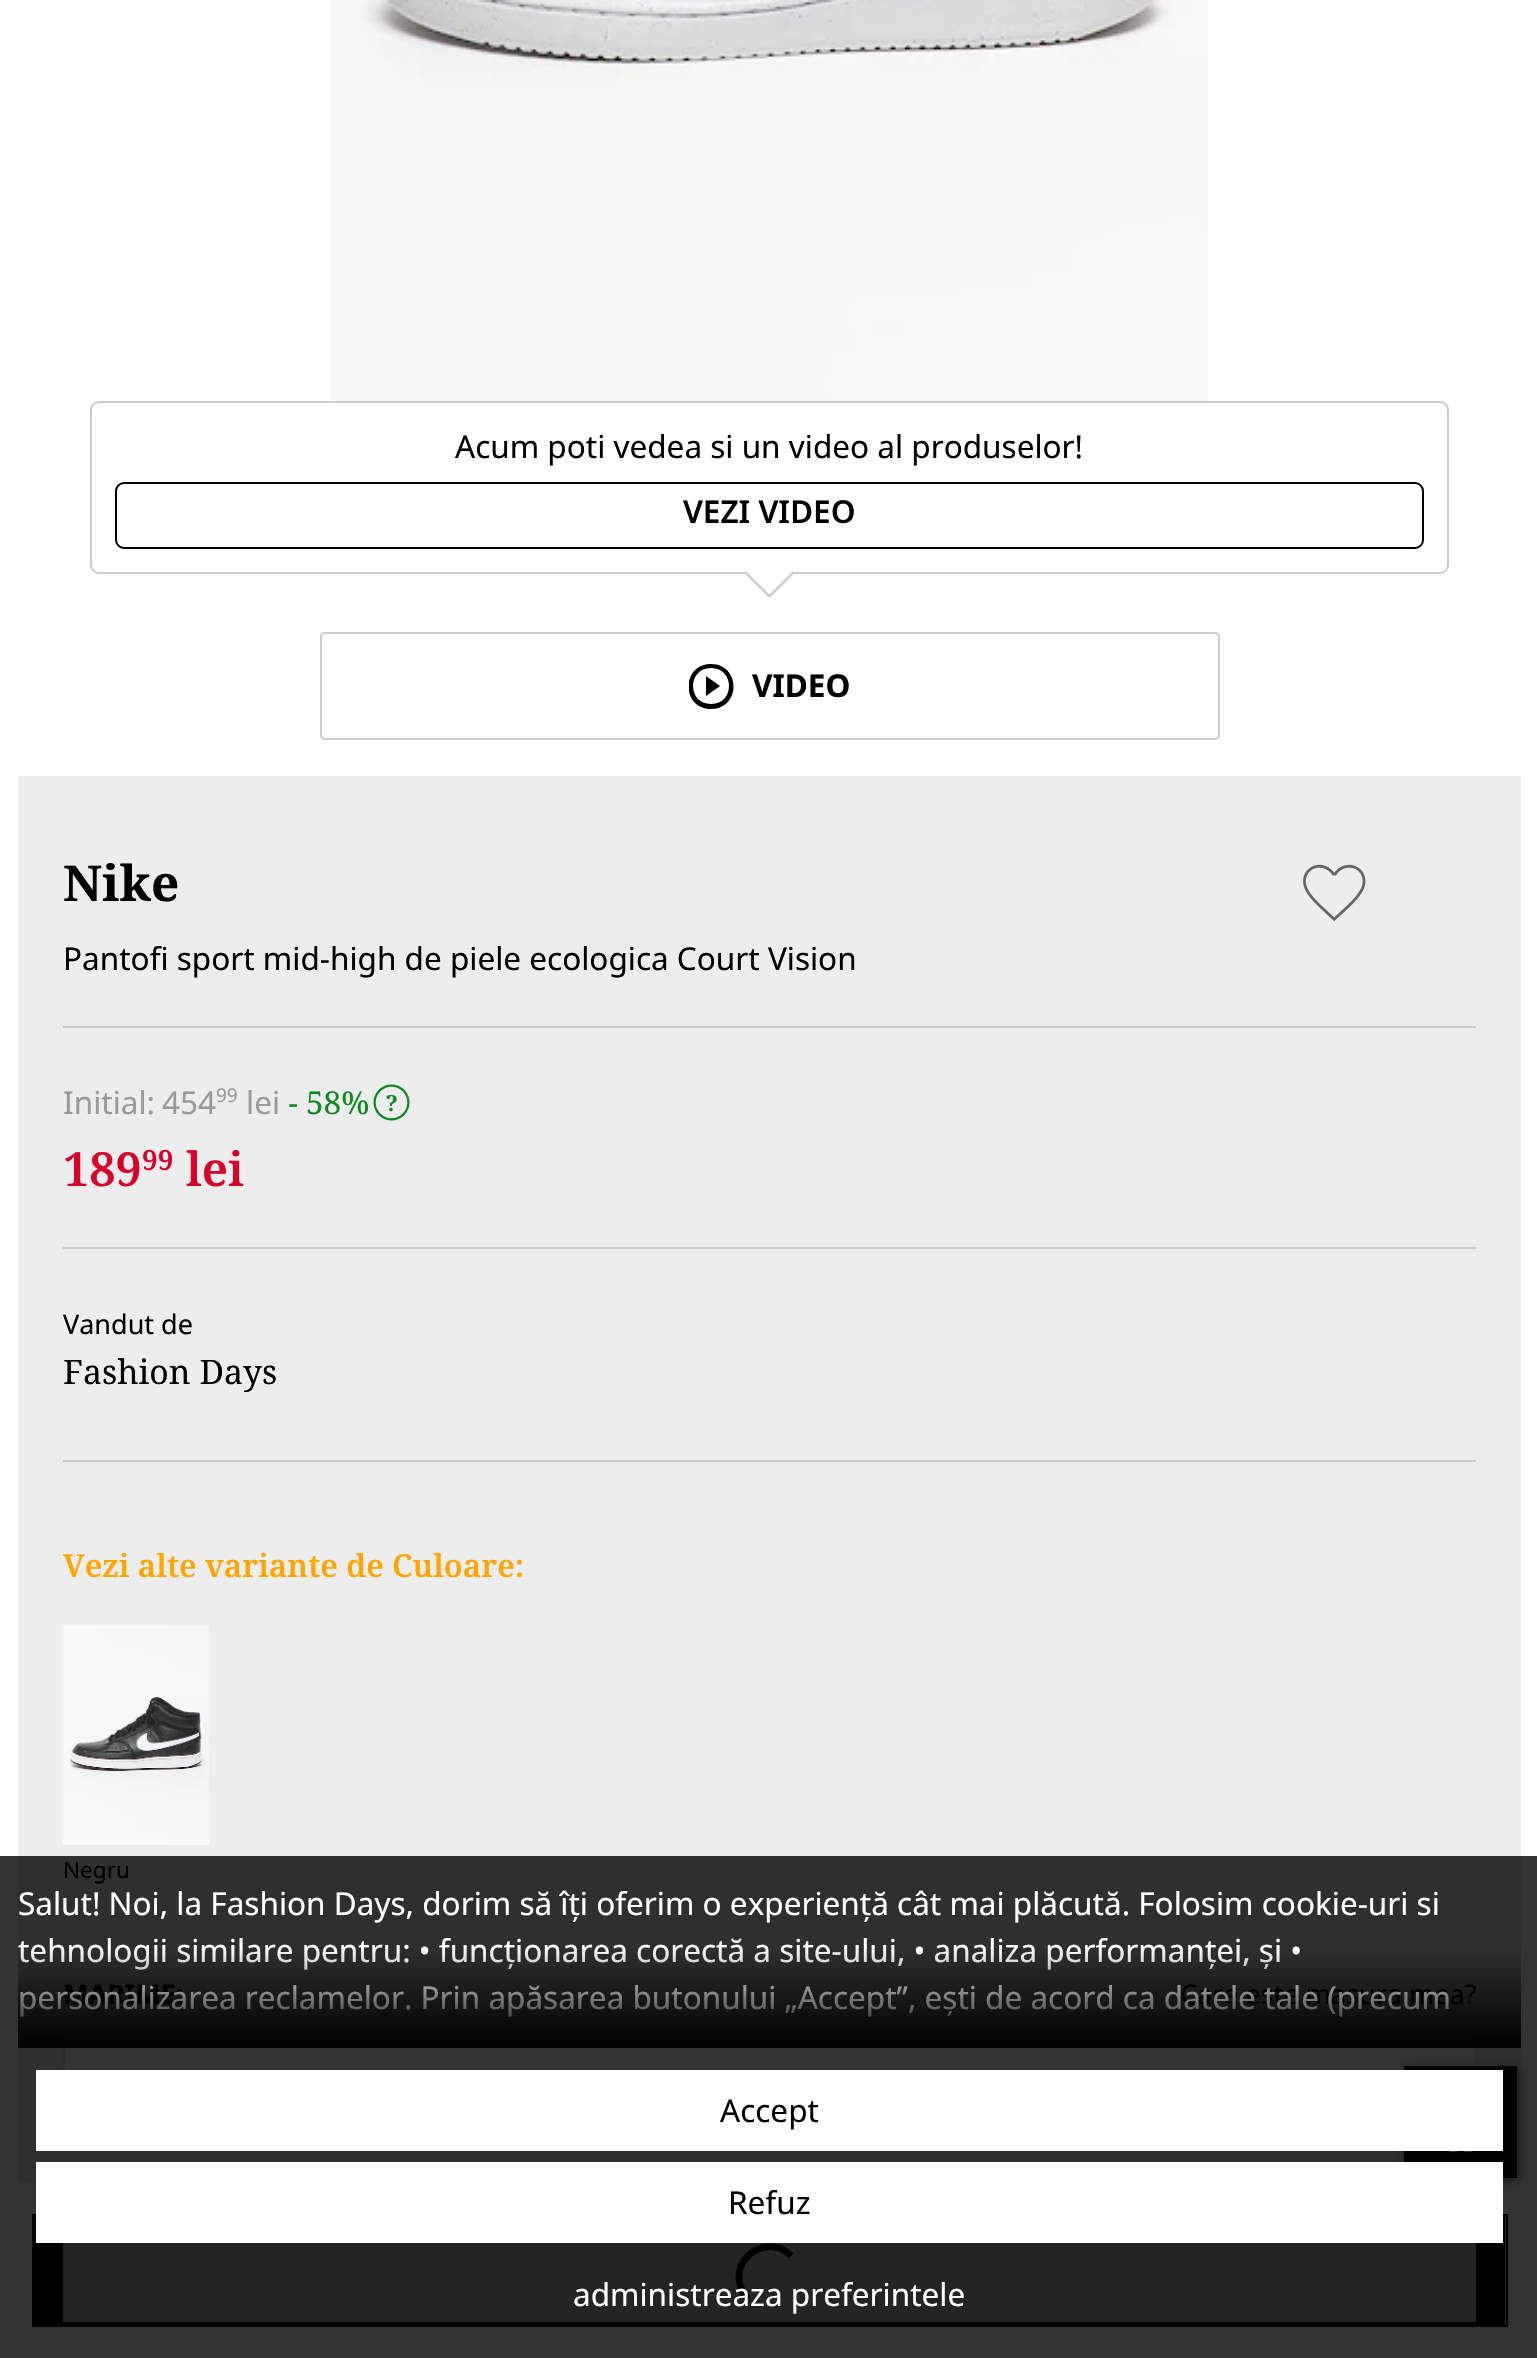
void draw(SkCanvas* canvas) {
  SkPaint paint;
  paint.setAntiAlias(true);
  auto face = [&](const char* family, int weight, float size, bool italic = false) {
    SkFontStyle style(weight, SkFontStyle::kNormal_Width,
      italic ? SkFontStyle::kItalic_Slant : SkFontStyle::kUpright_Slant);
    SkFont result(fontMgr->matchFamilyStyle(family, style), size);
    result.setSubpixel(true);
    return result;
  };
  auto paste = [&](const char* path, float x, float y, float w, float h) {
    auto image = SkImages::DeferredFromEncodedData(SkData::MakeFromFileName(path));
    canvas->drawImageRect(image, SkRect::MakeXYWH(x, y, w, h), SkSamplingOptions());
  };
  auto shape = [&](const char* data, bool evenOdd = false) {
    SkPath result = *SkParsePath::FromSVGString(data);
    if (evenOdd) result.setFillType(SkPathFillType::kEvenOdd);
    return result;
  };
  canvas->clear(0xffffffff);
  paint.setColor(0xff333333);
  canvas->drawRect(SkRect::MakeXYWH(0, 1856, 1537, 502), paint);
  paint.setStroke(true);
  paint.setStrokeWidth(2);
  paint.setColor(0xffcccccc);
  canvas->drawRoundRect(SkRect::MakeXYWH(91, 402, 1357, 171), 8, 8, paint);
  paint.setColor(0xff000000);
  canvas->drawRoundRect(SkRect::MakeXYWH(116, 483, 1307, 65), 8, 8, paint);
  paint.setStroke(false);
  paint.setColor(0xffffffff);
  canvas->drawPath(shape("M793 574L769 598L746 574L769 550Z"), paint);
  paint.setColor(0xffcccccc);
  canvas->drawPath(shape("M793.5 574L769.5 598L768 596L792 572.5Z"), paint);
  canvas->drawPath(shape("M771 596L769.5 598L745.5 574L747 572.5Z"), paint);
  paste("img/1.png", 331, 0, 877, 401);
  paint.setStroke(true);
  canvas->drawRoundRect(SkRect::MakeXYWH(321, 633, 898, 106), 4, 4, paint);
  canvas->save();
  canvas->clipRect(SkRect::MakeXYWH(689, 664, 45, 45));
  paint.setStroke(false);
  paint.setColor(0xff000000);
  canvas->drawPath(shape("M706 696L720 686L706 676ZM711 664C681 664 681 709 711 709C741 709 741 664 711 664ZM711 704C687 704 687 668 711 668C735 668 735 704 711 704Z"), paint);
  canvas->restore();
  {
    const struct { float x, y, w, h; SkColor color; } items[] = {
      {18, 776, 1503, 1080, 0xffededed},
      {18, 1856, 1503, 327, 0xff2f2f2f},
      {63, 1026, 1413, 2, 0xffcbcbcb},
    };
    for (auto [x, y, w, h, color] : items) {
      paint.setColor(color);
      canvas->drawRect(SkRect::MakeXYWH(x, y, w, h), paint);
    }
  }
  paste("img/2.png", 1303, 864, 63, 57);
  canvas->drawRect(SkRect::MakeXYWH(63, 1247, 1413, 2), paint);
  paste("img/3.png", 373, 1084, 37, 37);
  canvas->drawRect(SkRect::MakeXYWH(63, 1460, 1413, 2), paint);
  paste("img/4.png", 63, 1624, 146, 221);
  paint.setColor(0xff333333);
  canvas->drawRoundRect(SkRect::MakeXYWH(64, 2031, 1411, 110), 8, 8, paint);
  paint.setStroke(true);
  paint.setColor(0xff2c2c2c);
  canvas->drawRoundRect(SkRect::MakeXYWH(64, 2031, 1411, 110), 8, 8, paint);
  paint.setStroke(false);
  paint.setColor(0xff000000);
  canvas->drawRect(SkRect::MakeXYWH(34, 2216, 1471, 109), paint);
  paint.setColor(0xff242424);
  canvas->drawRect(SkRect::MakeXYWH(63, 2243, 1413, 79), paint);
  paint.setStroke(true);
  paint.setColor(0xff000000);
  canvas->drawRect(SkRect::MakeXYWH(33, 2215, 1474, 111), paint);
  paint.setStrokeWidth(6.8f);
  canvas->drawPath(shape("M748 2298.5C744 2294.5 741 2289 739.5 2283C734 2254 770 2234.5 791 2255.5"), paint);
  paint.setStroke(false);
  paint.setColor(0x80000000);
  paint.setMaskFilter(SkMaskFilter::MakeBlur(kNormal_SkBlurStyle, 5.5f));
  canvas->drawRect(SkRect::MakeXYWH(1406, 2068, 113, 112), paint);
  paint.setMaskFilter(nullptr);
  paint.setColor(0xff000000);
  canvas->drawRect(SkRect::MakeXYWH(1404, 2066, 113, 112), paint);
  paint.setColor(0xff333333);
  canvas->drawPath(shape("M1494 2104H1472V2152H1464V2130H1457V2152H1449V2104H1426V2096H1494ZM1455 2080C1462 2073 1472 2083 1466 2090C1459 2097 1448 2086 1455 2080Z"), paint);
  paint.setColor(0xffffffff);
  canvas->drawRect(SkRect::MakeXYWH(36, 2070, 1467, 81), paint);
  canvas->drawRect(SkRect::MakeXYWH(36, 2162, 1467, 81), paint);
  auto f0 = face("Noto Sans", 400, 31.5f);
  paint.setColor(0xff000000);
  canvas->drawString("Acum poti vedea si un video al produselor!", 455, 458, f0, paint);
  auto f1 = face("Noto Sans", 600, 31.5f);
  canvas->drawString("VEZI VIDEO", 683, 523, f1, paint);
  auto f2 = face("Noto Sans", 700, 31.5f);
  canvas->drawString("VIDEO", 752, 697, f2, paint);
  auto f3 = face("Noto Serif", 700, 49.5f);
  canvas->drawString("Nike", 63, 901, f3, paint);
  canvas->drawString("Pantofi sport mid-high de piele ecologica Court Vision", 63, 970, f0, paint);
  paint.setColor(0xff999999);
  canvas->drawString("Initial:", 63, 1114, f0, paint);
  canvas->drawString("454", 162, 1114, f0, paint);
  auto f4 = face("Noto Sans", 400, 19);
  canvas->drawString("99", 216, 1102, f4, paint);
  canvas->drawString("lei", 246, 1114, f0, paint);
  paint.setColor(0xff0d891e);
  canvas->drawString("-", 288, 1114, f0, paint);
  auto f5 = face("Noto Serif", 400, 31.5f);
  canvas->drawString("58%", 306, 1114, f5, paint);
  auto f6 = face("Noto Serif", 600, 47);
  paint.setColor(0xffd90029);
  canvas->drawString("189", 63, 1186, f6, paint);
  auto f7 = face("Noto Serif", 600, 28);
  canvas->drawString("99", 142, 1170, f7, paint);
  canvas->drawString("lei", 186, 1186, f6, paint);
  auto f8 = face("Noto Sans", 400, 27);
  paint.setColor(0xff000000);
  canvas->drawString("Vandut de", 63, 1334, f8, paint);
  auto f9 = face("Noto Serif", 400, 33.75f);
  canvas->drawString("Fashion Days", 63, 1384, f9, paint);
  auto f10 = face("Noto Serif", 600, 31.6f);
  paint.setColor(0xffffa500);
  canvas->drawString("Vezi alte variante de Culoare:", 63, 1577, f10, paint);
  auto f11 = face("Noto Sans", 400, 22.5f);
  paint.setColor(0xff000000);
  canvas->drawString("Negru", 63, 1878, f11, paint);
  auto f12 = face("Noto Sans", 700, 27);
  canvas->drawString("MARIME:", 63, 2004, f12, paint);
  canvas->drawString("Care este masura mea?", 1180, 2004, f8, paint);
  paint.setColor(0xffffffff);
  {
    const struct { const char* s; float x, y; } items[] = {
      {"Salut! Noi, la Fashion Days, dorim să îți oferim o experiență cât mai plăcută. Folosim cookie-uri si", 18, 1915},
      {"tehnologii similare pentru: • funcționarea corectă a site-ului, • analiza performanței, și •", 18, 1962},
      {"personalizarea reclamelor. Prin apăsarea butonului „Accept”, ești de acord ca datele tale (precum", 18, 2009},
    };
    for (auto [s, x, y] : items) {
      canvas->drawString(s, x, y, f0, paint);
    }
  }
  {
    const SkColor colors[] = {0x00000000, 0xff000000};
    const float stops[] = {0.4f, 1};
    const SkPoint ends[] = {{770, 1879}, {770, 2048}};
    paint.setShader(SkGradientShader::MakeLinear(ends, colors, stops, 2, SkTileMode::kClamp));
    paint.setAlpha(255);
  }
  canvas->drawRect(SkRect::MakeXYWH(18, 1949, 1503, 99), paint);
  paint.setShader(nullptr);
  paint.setColor(0xff000000);
  canvas->drawString("Accept", 720, 2122, f0, paint);
  canvas->drawString("Refuz", 728, 2214, f0, paint);
  paint.setColor(0xffffffff);
  canvas->drawString("administreaza preferintele", 573, 2306, f0, paint);
}
